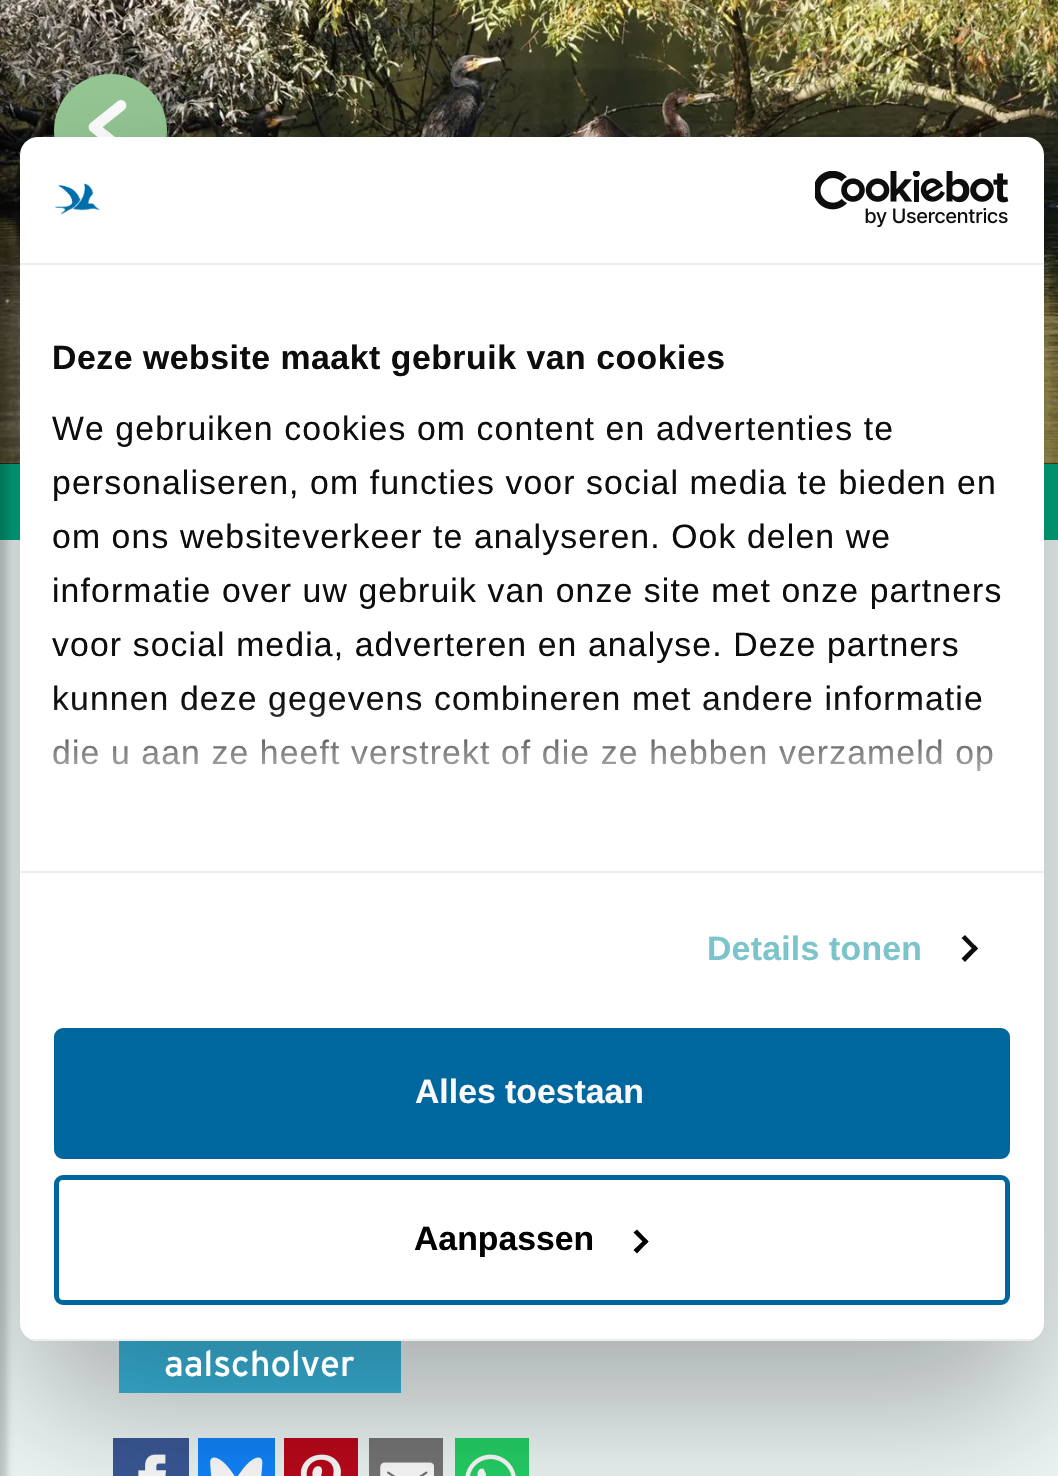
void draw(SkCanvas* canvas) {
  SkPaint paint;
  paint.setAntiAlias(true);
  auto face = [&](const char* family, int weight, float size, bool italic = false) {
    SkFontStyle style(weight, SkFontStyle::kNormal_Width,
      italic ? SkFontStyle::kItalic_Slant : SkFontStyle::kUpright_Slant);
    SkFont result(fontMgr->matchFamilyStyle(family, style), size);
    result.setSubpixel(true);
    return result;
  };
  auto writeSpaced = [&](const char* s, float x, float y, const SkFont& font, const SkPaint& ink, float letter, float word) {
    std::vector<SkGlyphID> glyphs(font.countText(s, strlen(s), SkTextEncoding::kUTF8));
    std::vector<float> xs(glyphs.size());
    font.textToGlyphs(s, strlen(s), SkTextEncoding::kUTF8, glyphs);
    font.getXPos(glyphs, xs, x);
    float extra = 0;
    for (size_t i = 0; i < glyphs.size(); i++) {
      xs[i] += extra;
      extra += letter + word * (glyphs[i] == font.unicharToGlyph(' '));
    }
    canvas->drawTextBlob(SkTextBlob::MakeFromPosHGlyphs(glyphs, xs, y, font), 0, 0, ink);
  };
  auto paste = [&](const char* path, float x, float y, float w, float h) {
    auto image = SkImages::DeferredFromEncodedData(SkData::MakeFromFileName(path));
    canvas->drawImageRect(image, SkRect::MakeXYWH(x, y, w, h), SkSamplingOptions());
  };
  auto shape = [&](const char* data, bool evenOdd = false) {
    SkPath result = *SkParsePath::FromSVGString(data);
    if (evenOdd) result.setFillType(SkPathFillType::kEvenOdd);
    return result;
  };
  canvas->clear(0xfff0f8f8);
  paint.setColor(0xff000000);
  canvas->drawRect(SkRect::MakeXYWH(0, 463, 1058, 1), paint);
  paste("img/3.png", 0, 0, 1058, 464);
  paint.setColor(0xff95c794);
  canvas->drawCircle(110.5f, 130.5f, 56.5f, paint);
  paste("img/4.png", 88, 100, 39, 37);
  {
    const struct { float x, y, w, h; SkColor color; } items[] = {
      {0, 464, 20, 76, 0xff00a77e},
      {1044, 464, 14, 76, 0xff00a77e},
      {119, 1341, 282, 52, 0xff3bbae2},
      {113, 1438, 76, 38, 0xff3b5998},
    };
    for (auto [x, y, w, h, color] : items) {
      paint.setColor(color);
      canvas->drawRect(SkRect::MakeXYWH(x, y, w, h), paint);
    }
  }
  paste("img/5.png", 138, 1454, 28, 22);
  paint.setColor(0xff1185fe);
  canvas->drawRect(SkRect::MakeXYWH(198, 1438, 77, 38), paint);
  paste("img/6.png", 210, 1457, 53, 19);
  paint.setColor(0xffbd081c);
  canvas->drawRect(SkRect::MakeXYWH(284, 1438, 74, 38), paint);
  paste("img/7.png", 300, 1454, 41, 22);
  paint.setColor(0xff777777);
  canvas->drawRect(SkRect::MakeXYWH(369, 1438, 74, 38), paint);
  paste("img/8.png", 380, 1462, 54, 14);
  paint.setColor(0xff25d366);
  canvas->drawRect(SkRect::MakeXYWH(455, 1438, 74, 38), paint);
  paste("img/9.png", 465, 1454, 51, 22);
  paint.setColor(0x4d000000);
  paint.setMaskFilter(SkMaskFilter::MakeBlur(kNormal_SkBlurStyle, 76.5f));
  canvas->drawRoundRect(SkRect::MakeXYWH(20, 209, 1024, 1204), 18, 18, paint);
  paint.setMaskFilter(nullptr);
  paint.setColor(0xffffffff);
  canvas->drawRoundRect(SkRect::MakeXYWH(20, 137, 1024, 1204), 18, 18, paint);
  paint.setColor(0xffeeeeee);
  canvas->drawRect(SkRect::MakeXYWH(20, 263, 1024, 2), paint);
  paste("img/1.png", 55, 183, 46, 32);
  paste("img/2.png", 815, 171, 194, 57);
  canvas->drawRect(SkRect::MakeXYWH(20, 871, 1024, 2), paint);
  paint.setColor(0xff0d0d0d);
  canvas->drawPath(shape("M965 935L978 948.5L975 951.5L961.5 938Z"), paint);
  canvas->drawPath(shape("M975 945L978 948.5L965 962L961.5 958.5Z"), paint);
  canvas->save();
  canvas->clipPath(shape("M38 137H1026C1036 137 1044 145 1044 155V1323C1044 1333 1036 1341 1026 1341H38C28 1341 20 1333 20 1323V155C20 145 28 137 38 137Z"), true);
  paint.setColor(0xffeeeeee);
  canvas->drawRect(SkRect::MakeXYWH(30, 1339, 1004, 2), paint);
  canvas->restore();
  paint.setColor(0xff00669e);
  canvas->drawRoundRect(SkRect::MakeXYWH(56.5f, 1030.5f, 951, 126), 6.5f, 6.5f, paint);
  paint.setStroke(true);
  paint.setStrokeWidth(5);
  canvas->drawRoundRect(SkRect::MakeXYWH(56.5f, 1030.5f, 951, 126), 6.5f, 6.5f, paint);
  canvas->drawRoundRect(SkRect::MakeXYWH(56.5f, 1177.5f, 951, 125), 6.5f, 6.5f, paint);
  paint.setStroke(false);
  paint.setColor(0xff000000);
  canvas->drawPath(shape("M637 1229.5L648.5 1241.5L645.5 1244.5L633.5 1232.5Z"), paint);
  canvas->drawPath(shape("M645.5 1238.5L648.5 1241.5L637 1253.5L633.5 1250Z"), paint);
  paint.setColor(0x33000000);
  paint.setMaskFilter(SkMaskFilter::MakeBlur(kNormal_SkBlurStyle, 3.5f));
  canvas->drawRect(SkRect::MakeXYWH(-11, 7, 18, 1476), paint);
  paint.setMaskFilter(nullptr);
  auto f0 = face("Liberation Sans", 700, 33.75f);
  paint.setColor(0xff0d0d0d);
  writeSpaced("Deze website maakt gebruik van cookies", 52, 369, f0, paint, 0.55f, 0);
  auto f1 = face("Liberation Sans", 400, 33.75f);
  {
    const struct { const char* s; float x, y; } items[] = {
      {"We gebruiken cookies om content en advertenties te", 52, 440},
      {"personaliseren, om functies voor social media te bieden en", 52, 494},
      {"om ons websiteverkeer te analyseren. Ook delen we", 52, 548},
      {"informatie over uw gebruik van onze site met onze partners", 52, 602},
      {"voor social media, adverteren en analyse. Deze partners", 52, 656},
      {"kunnen deze gegevens combineren met andere informatie", 52, 710},
      {"die u aan ze heeft verstrekt of die ze hebben verzameld op", 52, 764},
    };
    for (auto [s, x, y] : items) {
      writeSpaced(s, x, y, f1, paint, 1.12f, 0);
    }
  }
  {
    const SkColor colors[] = {0xffffffff, 0xccffffff, 0x00ffffff};
    const float stops[] = {0, 0.5f, 1};
    const SkPoint ends[] = {{516, 870}, {516, 701}};
    paint.setShader(SkGradientShader::MakeLinear(ends, colors, stops, 3, SkTileMode::kClamp));
    paint.setAlpha(255);
  }
  canvas->drawRect(SkRect::MakeXYWH(53, 703, 940, 68), paint);
  paint.setShader(nullptr);
  paint.setColor(0xff7cc4cb);
  writeSpaced("Details tonen", 707, 960, f0, paint, 0.25f, 0);
  paint.setColor(0xfffbf9f9);
  canvas->drawString("Alles toestaan", 415, 1103, f0, paint);
  paint.setColor(0xff000000);
  canvas->drawString("Aanpassen", 414, 1250, f0, paint);
  auto f2 = face("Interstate", 400, 36);
  paint.setColor(0xffffffff);
  canvas->drawString("aalscholver", 164, 1376, f2, paint);
}
